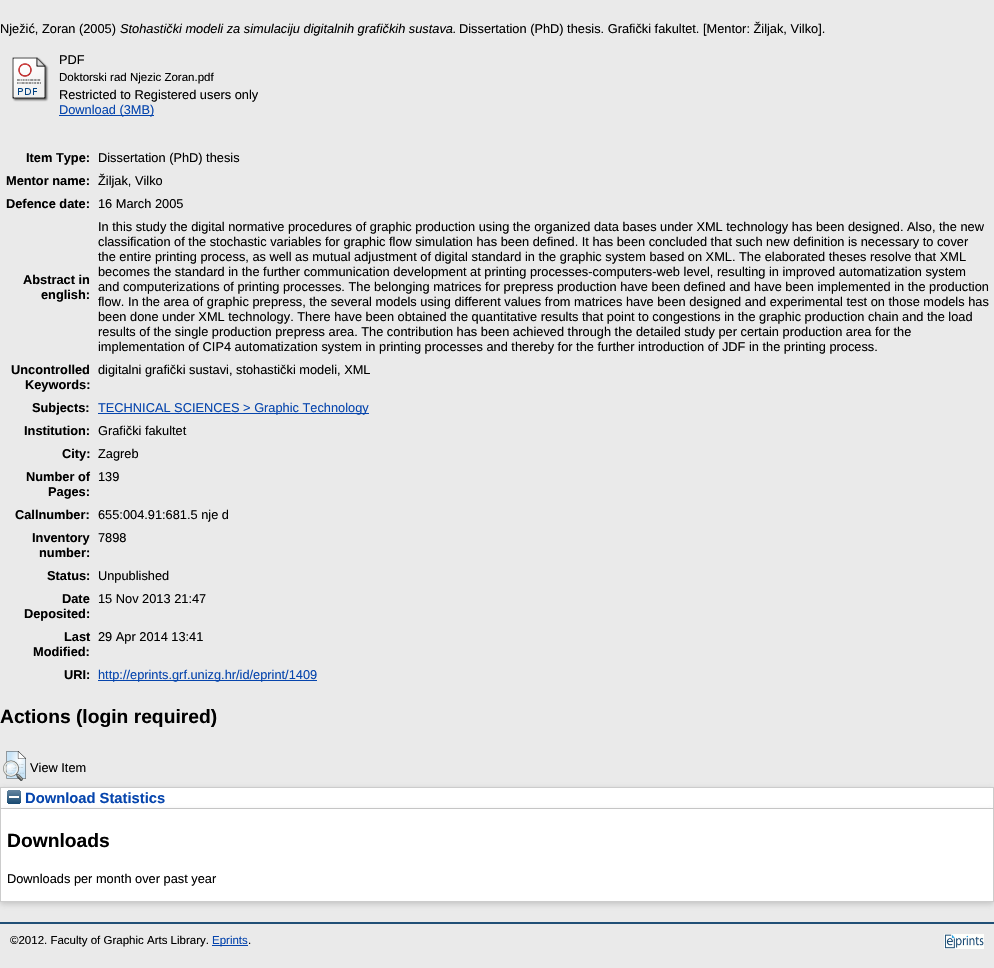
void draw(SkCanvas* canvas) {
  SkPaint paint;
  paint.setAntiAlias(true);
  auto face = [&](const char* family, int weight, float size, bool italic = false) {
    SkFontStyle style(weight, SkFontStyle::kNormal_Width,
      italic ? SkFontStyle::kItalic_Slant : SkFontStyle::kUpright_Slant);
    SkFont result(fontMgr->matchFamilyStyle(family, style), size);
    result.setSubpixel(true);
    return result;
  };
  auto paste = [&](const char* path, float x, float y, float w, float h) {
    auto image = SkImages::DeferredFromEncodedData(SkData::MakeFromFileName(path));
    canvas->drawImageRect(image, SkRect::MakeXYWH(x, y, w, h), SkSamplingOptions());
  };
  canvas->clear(0xffeaeaea);
  paste("img/1.png", 12, 57, 37, 45);
  {
    const struct { float x, y, w, h; SkColor color; } items[] = {
      {59, 115, 95, 1, 0xff0645ad},
      {98, 413, 271, 1, 0xff0645ad},
      {98, 680, 219, 1, 0xff0645ad},
    };
    for (auto [x, y, w, h, color] : items) {
      paint.setColor(color);
      canvas->drawRect(SkRect::MakeXYWH(x, y, w, h), paint);
    }
  }
  paint.setColor(0x4d646464);
  paint.setMaskFilter(SkMaskFilter::MakeBlur(kNormal_SkBlurStyle, 3));
  canvas->drawRect(SkRect::MakeXYWH(0, 789, 994, 22), paint);
  paint.setMaskFilter(nullptr);
  paste("img/2.png", 3, 751, 23, 30);
  paint.setColor(0xffffffff);
  canvas->drawRect(SkRect::MakeXYWH(0.5f, 787.5f, 993, 21), paint);
  paint.setStroke(true);
  paint.setStrokeWidth(1);
  paint.setColor(0xffcccccc);
  canvas->drawRect(SkRect::MakeXYWH(0.5f, 787.5f, 993, 21), paint);
  paint.setStroke(false);
  paint.setColor(0x4d646464);
  paint.setMaskFilter(SkMaskFilter::MakeBlur(kNormal_SkBlurStyle, 3));
  canvas->drawRect(SkRect::MakeXYWH(0, 811, 994, 93), paint);
  paint.setMaskFilter(nullptr);
  paste("img/3.png", 7, 790, 14, 14);
  {
    const struct { float x, y, w, h; SkColor color; } items[] = {
      {1, 809, 992, 92, 0xffffffff},
      {993, 809, 1, 93, 0xffcccccc},
      {0, 901, 994, 1, 0xffcccccc},
      {0, 809, 1, 93, 0xffcccccc},
      {0, 922, 994, 2, 0xff204f76},
      {212, 945, 36, 1, 0xff0645ad},
    };
    for (auto [x, y, w, h, color] : items) {
      paint.setColor(color);
      canvas->drawRect(SkRect::MakeXYWH(x, y, w, h), paint);
    }
  }
  paste("img/4.png", 944, 934, 40, 15);
  auto f0 = face("Liberation Sans", 400, 12.8f);
  paint.setColor(0xff000000);
  canvas->drawString("Nježić, Zoran (2005)", 0, 33, f0, paint);
  auto f1 = face("Liberation Sans", 400, 12.8f, true);
  canvas->drawString("Stohastički modeli za simulaciju digitalnih grafičkih sustava.", 120, 33, f1, paint);
  canvas->drawString("Dissertation (PhD) thesis. Grafički fakultet. [Mentor: Žiljak, Vilko].", 459, 33, f0, paint);
  canvas->drawString("PDF", 59, 64, f0, paint);
  auto f2 = face("Liberation Sans", 400, 11.5f);
  canvas->drawString("Doktorski rad Njezic Zoran.pdf", 59, 81, f2, paint);
  canvas->drawString("Restricted to Registered users only", 59, 99, f0, paint);
  paint.setColor(0xff0645ad);
  canvas->drawString("Download (3MB)", 59, 114, f0, paint);
  auto f3 = face("Liberation Sans", 700, 12.8f);
  paint.setColor(0xff000000);
  canvas->drawString("Item Type:", 26, 162, f3, paint);
  canvas->drawString("Dissertation (PhD) thesis", 98, 162, f0, paint);
  canvas->drawString("Mentor name:", 6, 185, f3, paint);
  canvas->drawString("Žiljak, Vilko", 98, 185, f0, paint);
  canvas->drawString("Defence date:", 6, 208, f3, paint);
  canvas->drawString("16 March 2005", 98, 208, f0, paint);
  canvas->drawString("Abstract in", 23, 284, f3, paint);
  canvas->drawString("english:", 41, 299, f3, paint);
  {
    const struct { const char* s; float x, y; } items[] = {
      {"In this study the digital normative procedures of graphic production using the organized data bases under XML technology has been designed. Also, the new", 98, 231},
      {"classification of the stochastic variables for graphic flow simulation has been defined. It has been concluded that such new definition is necessary to cover", 98, 246},
      {"the entire printing process, as well as mutual adjustment of digital standard in the graphic system based on XML. The elaborated theses resolve that XML", 98, 261},
      {"becomes the standard in the further communication development at printing processes-computers-web level, resulting in improved automatization system", 98, 276},
      {"and computerizations of printing processes. The belonging matrices for prepress production have been defined and have been implemented in the production", 98, 291},
      {"flow. In the area of graphic prepress, the several models using different values from matrices have been designed and experimental test on those models has", 98, 306},
      {"been done under XML technology. There have been obtained the quantitative results that point to congestions in the graphic production chain and the load", 98, 321},
      {"results of the single production prepress area. The contribution has been achieved through the detailed study per certain production area for the", 98, 336},
      {"implementation of CIP4 automatization system in printing processes and thereby for the further introduction of JDF in the printing process.", 98, 351},
    };
    for (auto [s, x, y] : items) {
      canvas->drawString(s, x, y, f0, paint);
    }
  }
  canvas->drawString("Uncontrolled", 11, 374, f3, paint);
  canvas->drawString("Keywords:", 25, 389, f3, paint);
  canvas->drawString("digitalni grafički sustavi, stohastički modeli, XML", 98, 374, f0, paint);
  canvas->drawString("Subjects:", 32, 412, f3, paint);
  paint.setColor(0xff0645ad);
  canvas->drawString("TECHNICAL SCIENCES > Graphic Technology", 98, 412, f0, paint);
  paint.setColor(0xff000000);
  canvas->drawString("Institution:", 24, 435, f3, paint);
  canvas->drawString("Grafički fakultet", 98, 435, f0, paint);
  canvas->drawString("City:", 62, 458, f3, paint);
  canvas->drawString("Zagreb", 98, 458, f0, paint);
  canvas->drawString("Number of", 26, 481, f3, paint);
  canvas->drawString("Pages:", 48, 496, f3, paint);
  canvas->drawString("139", 98, 481, f0, paint);
  canvas->drawString("Callnumber:", 15, 519, f3, paint);
  canvas->drawString("655:004.91:681.5 nje d", 98, 519, f0, paint);
  canvas->drawString("Inventory", 32, 542, f3, paint);
  canvas->drawString("number:", 39, 557, f3, paint);
  canvas->drawString("7898", 98, 542, f0, paint);
  canvas->drawString("Status:", 47, 580, f3, paint);
  canvas->drawString("Unpublished", 98, 580, f0, paint);
  canvas->drawString("Date", 62, 603, f3, paint);
  canvas->drawString("Deposited:", 24, 618, f3, paint);
  canvas->drawString("15 Nov 2013 21:47", 98, 603, f0, paint);
  canvas->drawString("Last", 64, 641, f3, paint);
  canvas->drawString("Modified:", 33, 656, f3, paint);
  canvas->drawString("29 Apr 2014 13:41", 98, 641, f0, paint);
  canvas->drawString("URI:", 64, 679, f3, paint);
  paint.setColor(0xff0645ad);
  canvas->drawString("http://eprints.grf.unizg.hr/id/eprint/1409", 98, 679, f0, paint);
  auto f4 = face("Liberation Sans", 700, 19.25f);
  paint.setColor(0xff000000);
  canvas->drawString("Actions (login required)", 0, 723, f4, paint);
  canvas->drawString("View Item", 30, 772, f0, paint);
  auto f5 = face("Liberation Sans", 700, 14.75f);
  paint.setColor(0xff0645ad);
  canvas->drawString("Download Statistics", 25, 803, f5, paint);
  paint.setColor(0xff000000);
  canvas->drawString("Downloads", 7, 847, f4, paint);
  canvas->drawString("Downloads per month over past year", 7, 883, f0, paint);
  canvas->drawString("©2012. Faculty of Graphic Arts Library.", 10, 944, f2, paint);
  paint.setColor(0xff0645ad);
  canvas->drawString("Eprints", 212, 944, f2, paint);
  paint.setColor(0xff000000);
  canvas->drawString(".", 248, 944, f2, paint);
}
